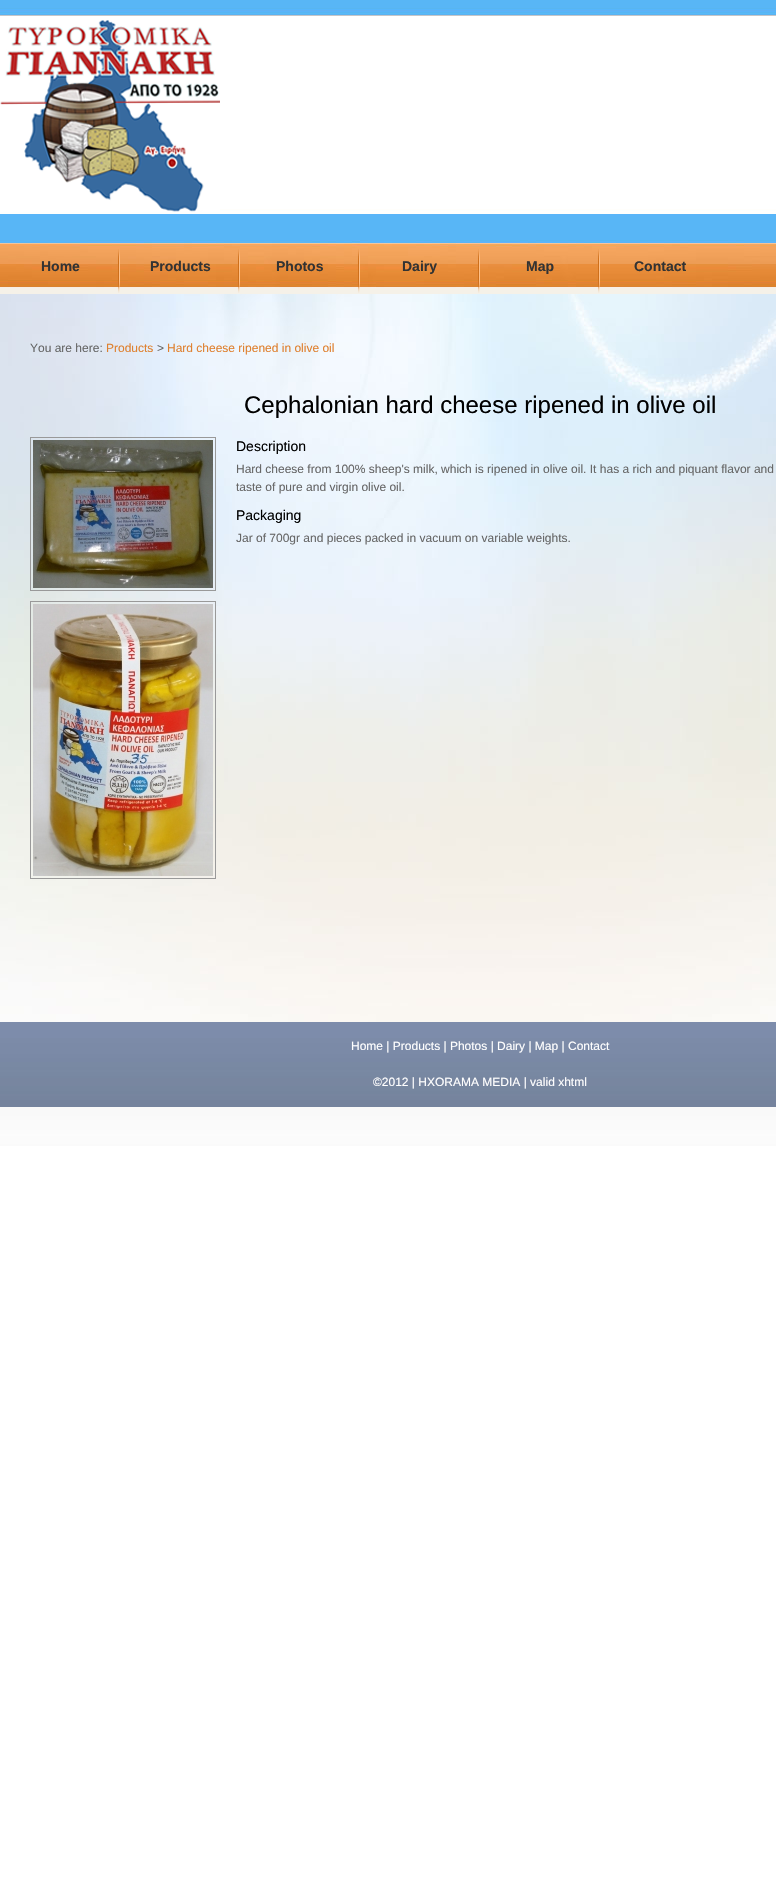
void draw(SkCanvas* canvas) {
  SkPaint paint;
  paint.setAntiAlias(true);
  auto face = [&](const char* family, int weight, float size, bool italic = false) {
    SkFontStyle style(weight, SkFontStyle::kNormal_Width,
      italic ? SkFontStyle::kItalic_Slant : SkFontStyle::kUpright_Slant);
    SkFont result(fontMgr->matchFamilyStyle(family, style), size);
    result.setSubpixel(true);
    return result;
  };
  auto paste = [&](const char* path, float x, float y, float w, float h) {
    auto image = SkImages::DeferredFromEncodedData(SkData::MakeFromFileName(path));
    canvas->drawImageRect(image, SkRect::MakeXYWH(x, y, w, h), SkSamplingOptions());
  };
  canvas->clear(0xffffffff);
  paste("img/1.png", 0, 0, 776, 1146);
  paste("img/2.png", 0, 288, 776, 6);
  paste("img/3.png", 0, 240, 776, 48);
  paste("img/4.png", 0, 20, 220, 192);
  paste("img/5.png", 118, 249, 2, 44);
  paste("img/6.png", 238, 249, 2, 44);
  paste("img/7.png", 358, 249, 2, 44);
  paste("img/8.png", 478, 249, 2, 44);
  paste("img/9.png", 598, 249, 2, 44);
  paste("img/10.png", 0, 294, 776, 728);
  paint.setStroke(true);
  paint.setStrokeWidth(1);
  paint.setColor(0xff999999);
  canvas->drawRect(SkRect::MakeXYWH(30.5f, 437.5f, 185, 153), paint);
  paste("img/11.png", 33, 440, 180, 148);
  canvas->drawRect(SkRect::MakeXYWH(30.5f, 601.5f, 185, 277), paint);
  paste("img/12.png", 33, 604, 180, 272);
  paste("img/13.png", 0, 1022, 776, 85);
  auto f0 = face("Liberation Sans", 700, 14);
  paint.setStroke(false);
  paint.setColor(0xff333333);
  {
    const struct { const char* s; float x, y; } items[] = {
      {"Home", 41, 271},
      {"Products", 150, 271},
      {"Photos", 276, 271},
      {"Dairy", 402, 271},
      {"Map", 526, 271},
      {"Contact", 634, 271},
    };
    for (auto [s, x, y] : items) {
      canvas->drawString(s, x, y, f0, paint);
    }
  }
  auto f1 = face("Liberation Sans", 400, 12);
  paint.setColor(0xff666666);
  canvas->drawString("You are here:", 30, 352, f1, paint);
  paint.setColor(0xffdf802e);
  canvas->drawString("Products", 106, 352, f1, paint);
  paint.setColor(0xff666666);
  canvas->drawString(">", 157, 352, f1, paint);
  paint.setColor(0xffdf802e);
  canvas->drawString("Hard cheese ripened in olive oil", 167, 352, f1, paint);
  auto f2 = face("Liberation Sans", 400, 24);
  paint.setColor(0xff000000);
  canvas->drawString("Cephalonian hard cheese ripened in olive oil", 244, 413, f2, paint);
  auto f3 = face("Liberation Sans", 400, 14);
  canvas->drawString("Description", 236, 451, f3, paint);
  paint.setColor(0xff666666);
  canvas->drawString("Hard cheese from 100% sheep's milk, which is ripened in olive oil. It has a rich and piquant flavor and", 236, 473, f1, paint);
  canvas->drawString("taste of pure and virgin olive oil.", 236, 491, f1, paint);
  paint.setColor(0xff000000);
  canvas->drawString("Packaging", 236, 520, f3, paint);
  paint.setColor(0xff666666);
  canvas->drawString("Jar of 700gr and pieces packed in vacuum on variable weights.", 236, 542, f1, paint);
  paint.setColor(0xffffffff);
  canvas->drawString("Home | Products | Photos | Dairy | Map | Contact", 351, 1050, f1, paint);
  canvas->drawString("©2012 | HXORAMA MEDIA | valid xhtml", 373, 1086, f1, paint);
}
